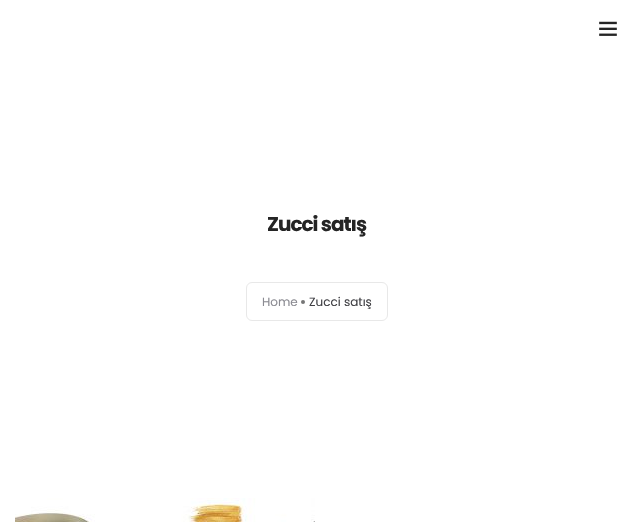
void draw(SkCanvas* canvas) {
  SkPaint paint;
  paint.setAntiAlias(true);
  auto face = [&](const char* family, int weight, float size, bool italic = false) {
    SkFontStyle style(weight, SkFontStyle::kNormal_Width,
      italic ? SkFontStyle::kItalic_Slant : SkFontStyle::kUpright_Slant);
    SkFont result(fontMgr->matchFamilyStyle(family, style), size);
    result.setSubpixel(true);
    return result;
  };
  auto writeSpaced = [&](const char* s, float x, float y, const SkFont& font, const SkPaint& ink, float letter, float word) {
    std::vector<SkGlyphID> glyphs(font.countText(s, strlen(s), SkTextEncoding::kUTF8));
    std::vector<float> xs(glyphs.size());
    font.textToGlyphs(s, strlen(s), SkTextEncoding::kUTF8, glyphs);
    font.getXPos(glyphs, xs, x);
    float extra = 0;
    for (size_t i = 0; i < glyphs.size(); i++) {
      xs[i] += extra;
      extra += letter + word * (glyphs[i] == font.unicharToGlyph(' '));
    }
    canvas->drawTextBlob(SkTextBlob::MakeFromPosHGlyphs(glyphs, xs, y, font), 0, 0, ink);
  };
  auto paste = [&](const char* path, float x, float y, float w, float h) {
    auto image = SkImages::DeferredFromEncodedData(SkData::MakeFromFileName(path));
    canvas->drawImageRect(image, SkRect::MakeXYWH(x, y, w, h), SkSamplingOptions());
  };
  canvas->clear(0xffffffff);
  paste("img/1.png", 599, 21, 18, 15);
  paint.setStroke(true);
  paint.setStrokeWidth(1);
  paint.setColor(0xffe8e8e8);
  canvas->drawRoundRect(SkRect::MakeXYWH(246.5f, 282.5f, 141, 38), 5.5f, 5.5f, paint);
  paint.setStroke(false);
  paint.setColor(0xff767676);
  canvas->drawCircle(303, 302, 2, paint);
  paste("img/2.png", 15, 498, 300, 24);
  auto f0 = face("Poppins", 700, 20);
  paint.setColor(0xff252525);
  writeSpaced("Zucci satış", 267, 231, f0, paint, -1, 0);
  auto f1 = face("Poppins", 400, 12);
  paint.setColor(0xff8b8b92);
  canvas->drawString("Home", 262, 306, f1, paint);
  paint.setColor(0xff404044);
  canvas->drawString("Zucci satış", 309, 306, f1, paint);
}
